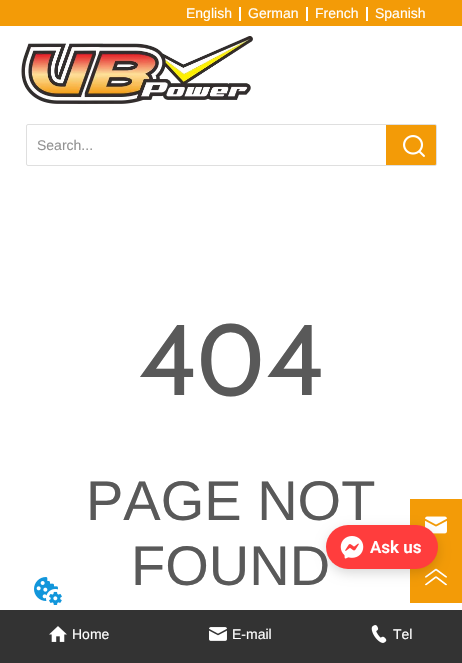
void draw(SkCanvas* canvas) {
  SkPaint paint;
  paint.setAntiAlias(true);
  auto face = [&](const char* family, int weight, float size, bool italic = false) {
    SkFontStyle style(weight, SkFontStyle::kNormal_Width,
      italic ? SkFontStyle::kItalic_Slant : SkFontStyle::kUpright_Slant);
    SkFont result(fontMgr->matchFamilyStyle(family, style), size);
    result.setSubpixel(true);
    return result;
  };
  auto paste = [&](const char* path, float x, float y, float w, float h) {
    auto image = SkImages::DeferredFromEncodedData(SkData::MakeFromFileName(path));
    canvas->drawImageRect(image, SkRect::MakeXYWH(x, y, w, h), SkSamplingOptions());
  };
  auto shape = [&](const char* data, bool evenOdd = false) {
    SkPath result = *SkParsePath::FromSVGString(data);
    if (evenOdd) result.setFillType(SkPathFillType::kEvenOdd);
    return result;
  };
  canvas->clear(0xffffffff);
  {
    const struct { float x, y, w, h; SkColor color; } items[] = {
      {0, 0, 462, 26, 0xfff39b07},
      {239, 7, 2, 14, 0xffffffff},
      {306, 7, 2, 14, 0xffffffff},
      {366, 7, 2, 14, 0xffffffff},
    };
    for (auto [x, y, w, h, color] : items) {
      paint.setColor(color);
      canvas->drawRect(SkRect::MakeXYWH(x, y, w, h), paint);
    }
  }
  paste("img/1.png", 21, 36, 232, 68);
  paint.setStroke(true);
  paint.setStrokeWidth(1);
  paint.setColor(0xffdfdfdf);
  canvas->drawRoundRect(SkRect::MakeXYWH(26.5f, 124.5f, 410, 41), 1.5f, 1.5f, paint);
  paint.setStroke(false);
  paint.setColor(0xfff39b07);
  canvas->drawPath(shape("M386 125H435C435.5 125 436 125.5 436 126V164C436 164.5 435.5 165 435 165H386Z"), paint);
  paste("img/2.png", 403, 135, 22, 22);
  canvas->drawRect(SkRect::MakeXYWH(410, 499, 52, 104), paint);
  paste("img/3.png", 425, 516, 22, 18);
  paste("img/4.png", 425, 568, 22, 18);
  paint.setColor(0xff333333);
  canvas->drawRect(SkRect::MakeXYWH(0, 610, 462, 53), paint);
  paste("img/5.png", 49, 626, 18, 16);
  paste("img/6.png", 209, 627, 18, 14);
  paste("img/7.png", 371, 625, 16, 18);
  paint.setColor(0x26000000);
  paint.setMaskFilter(SkMaskFilter::MakeBlur(kNormal_SkBlurStyle, 6));
  canvas->drawRoundRect(SkRect::MakeXYWH(327, 529, 111, 44), 22, 22, paint);
  paint.setMaskFilter(nullptr);
  paste("img/9.png", 34, 577, 28, 28);
  auto f0 = face("Liberation Sans", 400, 14);
  paint.setColor(0xffffffff);
  {
    const struct { const char* s; float x, y; } items[] = {
      {"English", 186, 18},
      {"German", 248, 18},
      {"French", 315, 18},
      {"Spanish", 375, 18},
    };
    for (auto [s, x, y] : items) {
      canvas->drawString(s, x, y, f0, paint);
    }
  }
  paint.setColor(0xff929292);
  canvas->drawString("Search...", 37, 150, f0, paint);
  auto f1 = face("Cabin", 400, 100);
  paint.setColor(0xff595959);
  canvas->drawString("404", 138, 395, f1, paint);
  auto f2 = face("Liberation Sans", 400, 56);
  canvas->drawString("PAGE NOT", 86, 520, f2, paint);
  canvas->drawString("FOUND", 131, 585, f2, paint);
  paint.setColor(0xffffffff);
  {
    const struct { const char* s; float x, y; } items[] = {
      {"Home", 72, 639},
      {"E-mail", 232, 639},
      {"Tel", 393, 639},
    };
    for (auto [s, x, y] : items) {
      canvas->drawString(s, x, y, f0, paint);
    }
  }
  paint.setColor(0xffff3d3d);
  canvas->drawRoundRect(SkRect::MakeXYWH(326, 525, 112, 44), 22, 22, paint);
  paste("img/8.png", 340, 536, 24, 23);
  auto f3 = face("Roboto", 600, 17);
  paint.setColor(0xffffffff);
  canvas->drawString("Ask us", 370, 553, f3, paint);
}
